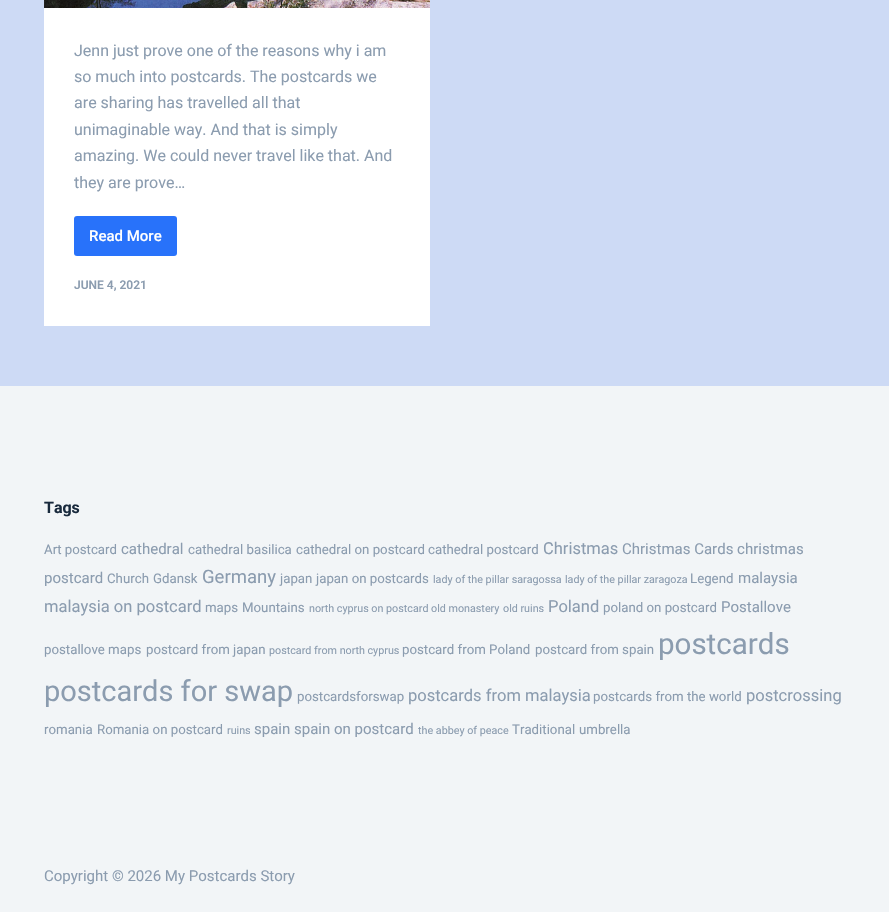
void draw(SkCanvas* canvas) {
  SkPaint paint;
  paint.setAntiAlias(true);
  auto face = [&](const char* family, int weight, float size, bool italic = false) {
    SkFontStyle style(weight, SkFontStyle::kNormal_Width,
      italic ? SkFontStyle::kItalic_Slant : SkFontStyle::kUpright_Slant);
    SkFont result(fontMgr->matchFamilyStyle(family, style), size);
    result.setSubpixel(true);
    return result;
  };
  auto paste = [&](const char* path, float x, float y, float w, float h) {
    auto image = SkImages::DeferredFromEncodedData(SkData::MakeFromFileName(path));
    canvas->drawImageRect(image, SkRect::MakeXYWH(x, y, w, h), SkSamplingOptions());
  };
  canvas->clear(0xffcddaf5);
  paint.setColor(0xffffffff);
  canvas->drawRect(SkRect::MakeXYWH(44, 8, 386, 318), paint);
  paste("img/1.png", 44, 0, 386, 8);
  paint.setColor(0xff2872fa);
  canvas->drawRoundRect(SkRect::MakeXYWH(74, 216, 103, 40), 3, 3, paint);
  paint.setColor(0xfff2f5f7);
  canvas->drawRect(SkRect::MakeXYWH(0, 386, 889, 526), paint);
  auto f0 = face("Roboto", 400, 16);
  paint.setColor(0xff8b9caf);
  {
    const struct { const char* s; float x, y; } items[] = {
      {"Jenn just prove one of the reasons why i am", 74, 56},
      {"so much into postcards. The postcards we", 74, 82},
      {"are sharing has travelled all that", 74, 108},
      {"unimaginable way. And that is simply", 74, 135},
      {"amazing. We could never travel like that. And", 74, 161},
      {"they are prove…", 74, 188},
    };
    for (auto [s, x, y] : items) {
      canvas->drawString(s, x, y, f0, paint);
    }
  }
  auto f1 = face("Roboto", 500, 15);
  paint.setColor(0xffffffff);
  canvas->drawString("Read More", 89, 241, f1, paint);
  auto f2 = face("Roboto", 600, 12);
  paint.setColor(0xff8b9caf);
  canvas->drawString("JUNE 4, 2021", 74, 289, f2, paint);
  auto f3 = face("Roboto", 700, 16);
  paint.setColor(0xff192a3d);
  canvas->drawString("Tags", 44, 513, f3, paint);
  auto f4 = face("Roboto", 400, 13.25f);
  paint.setColor(0xff8b9caf);
  canvas->drawString("Art postcard", 44, 554, f4, paint);
  auto f5 = face("Roboto", 400, 15);
  canvas->drawString("cathedral", 121, 554, f5, paint);
  {
    const struct { const char* s; float x, y; } items[] = {
      {"cathedral basilica", 188, 554},
      {"cathedral on postcard", 296, 554},
      {"cathedral postcard", 428, 554},
    };
    for (auto [s, x, y] : items) {
      canvas->drawString(s, x, y, f4, paint);
    }
  }
  auto f6 = face("Roboto", 400, 16.5f);
  canvas->drawString("Christmas", 543, 554, f6, paint);
  canvas->drawString("Christmas Cards christmas", 622, 554, f5, paint);
  canvas->drawString("postcard", 44, 583, f5, paint);
  canvas->drawString("Church", 107, 583, f4, paint);
  canvas->drawString("Gdansk", 153, 583, f4, paint);
  auto f7 = face("Roboto", 400, 18.5f);
  canvas->drawString("Germany", 202, 583, f7, paint);
  canvas->drawString("japan", 280, 583, f4, paint);
  canvas->drawString("japan on postcards", 316, 583, f4, paint);
  auto f8 = face("Roboto", 400, 10.75f);
  canvas->drawString("lady of the pillar saragossa", 433, 583, f8, paint);
  canvas->drawString("lady of the pillar zaragoza", 565, 583, f8, paint);
  canvas->drawString("Legend", 690, 583, f4, paint);
  canvas->drawString("malaysia", 738, 583, f5, paint);
  canvas->drawString("malaysia on postcard", 44, 612, f6, paint);
  canvas->drawString("maps", 205, 612, f4, paint);
  canvas->drawString("Mountains", 242, 612, f4, paint);
  {
    const struct { const char* s; float x, y; } items[] = {
      {"north cyprus on postcard", 309, 612},
      {"old monastery", 431, 612},
      {"old ruins", 503, 612},
    };
    for (auto [s, x, y] : items) {
      canvas->drawString(s, x, y, f8, paint);
    }
  }
  canvas->drawString("Poland", 548, 612, f6, paint);
  canvas->drawString("poland on postcard", 603, 612, f4, paint);
  canvas->drawString("Postallove", 721, 612, f5, paint);
  canvas->drawString("postallove maps", 44, 654, f4, paint);
  canvas->drawString("postcard from japan", 146, 654, f4, paint);
  canvas->drawString("postcard from north cyprus", 269, 654, f8, paint);
  canvas->drawString("postcard from Poland", 402, 654, f4, paint);
  canvas->drawString("postcard from spain", 535, 654, f4, paint);
  auto f9 = face("Roboto", 400, 29.5f);
  canvas->drawString("postcards", 658, 654, f9, paint);
  auto f10 = face("Roboto", 400, 29);
  canvas->drawString("postcards for swap", 44, 701, f10, paint);
  canvas->drawString("postcardsforswap", 297, 701, f4, paint);
  canvas->drawString("postcards from malaysia", 408, 701, f6, paint);
  canvas->drawString("postcards from the world", 593, 701, f4, paint);
  canvas->drawString("postcrossing", 746, 701, f6, paint);
  canvas->drawString("romania", 44, 734, f4, paint);
  canvas->drawString("Romania on postcard", 97, 734, f4, paint);
  canvas->drawString("ruins", 227, 734, f8, paint);
  canvas->drawString("spain spain on postcard", 254, 734, f5, paint);
  canvas->drawString("the abbey of peace", 418, 734, f8, paint);
  canvas->drawString("Traditional", 512, 734, f4, paint);
  canvas->drawString("umbrella", 579, 734, f4, paint);
  canvas->drawString("Copyright © 2026 My Postcards Story", 44, 881, f5, paint);
}
